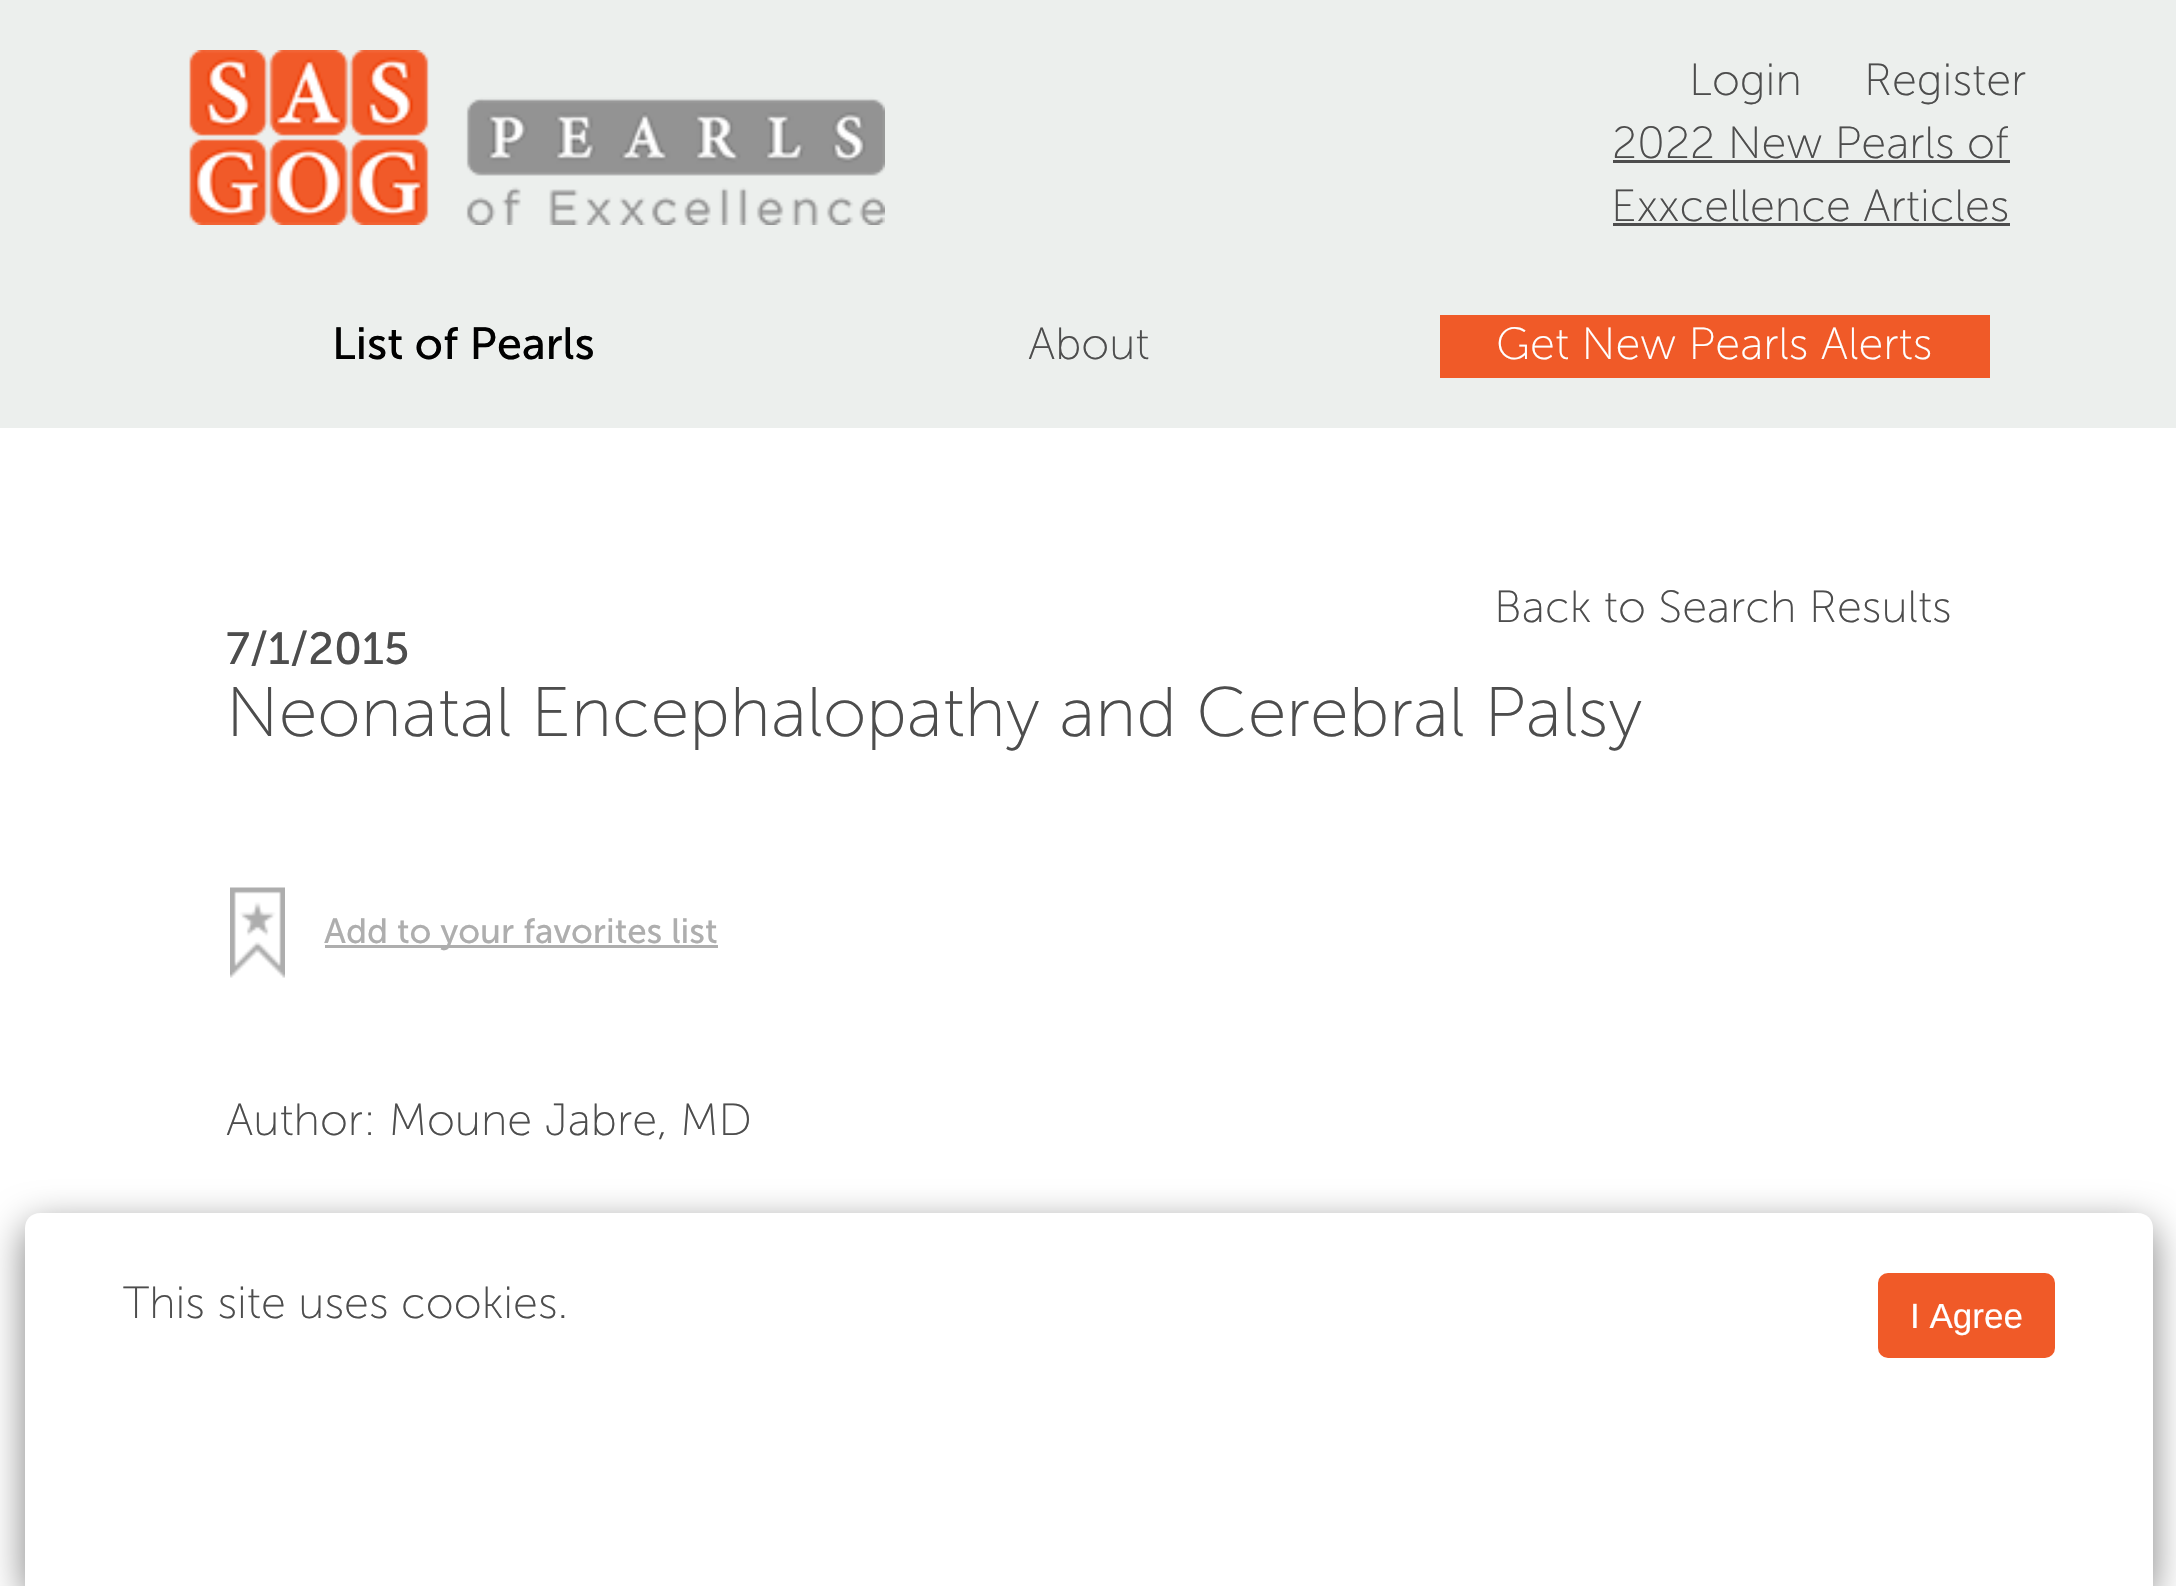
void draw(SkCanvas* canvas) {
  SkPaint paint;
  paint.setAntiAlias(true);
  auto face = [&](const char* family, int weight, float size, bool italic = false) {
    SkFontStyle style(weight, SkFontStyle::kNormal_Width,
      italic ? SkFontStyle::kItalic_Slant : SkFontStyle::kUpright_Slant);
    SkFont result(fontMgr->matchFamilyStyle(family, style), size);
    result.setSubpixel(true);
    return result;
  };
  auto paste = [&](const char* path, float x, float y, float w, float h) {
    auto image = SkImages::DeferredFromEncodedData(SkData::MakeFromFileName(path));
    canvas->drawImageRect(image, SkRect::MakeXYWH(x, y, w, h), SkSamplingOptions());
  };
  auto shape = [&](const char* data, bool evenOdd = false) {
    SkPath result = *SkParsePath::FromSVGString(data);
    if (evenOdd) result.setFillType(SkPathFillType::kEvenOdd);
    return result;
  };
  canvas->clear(0xffecefed);
  paste("img/1.png", 189, 50, 696, 175);
  {
    const struct { float x, y, w, h; SkColor color; } items[] = {
      {1613, 160, 397, 3, 0xff4d4d4d},
      {1613, 223, 397, 3, 0xff4d4d4d},
      {1440, 315, 550, 63, 0xfff05a28},
      {0, 428, 2176, 1158, 0xffffffff},
    };
    for (auto [x, y, w, h, color] : items) {
      paint.setColor(color);
      canvas->drawRect(SkRect::MakeXYWH(x, y, w, h), paint);
    }
  }
  paste("img/2.png", 230, 887, 55, 91);
  paint.setColor(0xffaeaeae);
  canvas->drawRect(SkRect::MakeXYWH(325, 945, 393, 3), paint);
  paint.setColor(0x80000000);
  paint.setMaskFilter(SkMaskFilter::MakeBlur(kNormal_SkBlurStyle, 19));
  canvas->drawRoundRect(SkRect::MakeXYWH(25, 1225, 2128, 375), 15, 15, paint);
  paint.setMaskFilter(nullptr);
  paint.setColor(0xffffffff);
  canvas->drawPath(shape("M40 1213H2138C2146.5 1213 2153 1219.5 2153 1228V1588H25V1228C25 1219.5 31.5 1213 40 1213Z"), paint);
  paint.setColor(0xfff05a28);
  canvas->drawRoundRect(SkRect::MakeXYWH(1879.5f, 1274.5f, 174, 82), 8.5f, 8.5f, paint);
  paint.setStroke(true);
  paint.setStrokeWidth(3);
  canvas->drawRoundRect(SkRect::MakeXYWH(1879.5f, 1274.5f, 174, 82), 8.5f, 8.5f, paint);
  auto f0 = face("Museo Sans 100", 300, 45);
  paint.setStroke(false);
  paint.setColor(0xff4d4d4d);
  {
    const struct { const char* s; float x, y; } items[] = {
      {"Login", 1689, 95},
      {"Register", 1864, 95},
      {"2022 New Pearls of", 1612, 158},
      {"Exxcellence Articles", 1611, 221},
    };
    for (auto [s, x, y] : items) {
      canvas->drawString(s, x, y, f0, paint);
    }
  }
  auto f1 = face("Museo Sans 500", 400, 45);
  paint.setColor(0xff000000);
  canvas->drawString("List of Pearls", 332, 359, f1, paint);
  paint.setColor(0xff4d4d4d);
  canvas->drawString("About", 1028, 359, f0, paint);
  paint.setColor(0xffffffff);
  canvas->drawString("Get New Pearls Alerts", 1496, 359, f0, paint);
  paint.setColor(0xff4d4d4d);
  canvas->drawString("Back to Search Results", 1494, 622, f0, paint);
  canvas->drawString("7/1/2015", 226, 664, f1, paint);
  auto f2 = face("Museo Sans 100", 300, 70);
  canvas->drawString("Neonatal Encephalopathy and Cerebral Palsy", 226, 736, f2, paint);
  auto f3 = face("Museo Sans 500", 400, 35);
  paint.setColor(0xffaeaeae);
  canvas->drawString("Add to your favorites list", 324, 943, f3, paint);
  paint.setColor(0xff4d4d4d);
  canvas->drawString("Author: Moune Jabre, MD", 226, 1135, f0, paint);
  canvas->drawString("This site uses cookies.", 123, 1318, f0, paint);
  auto f4 = face("Liberation Sans", 400, 35);
  paint.setColor(0xffffffff);
  canvas->drawString("I Agree", 1910, 1328, f4, paint);
}
